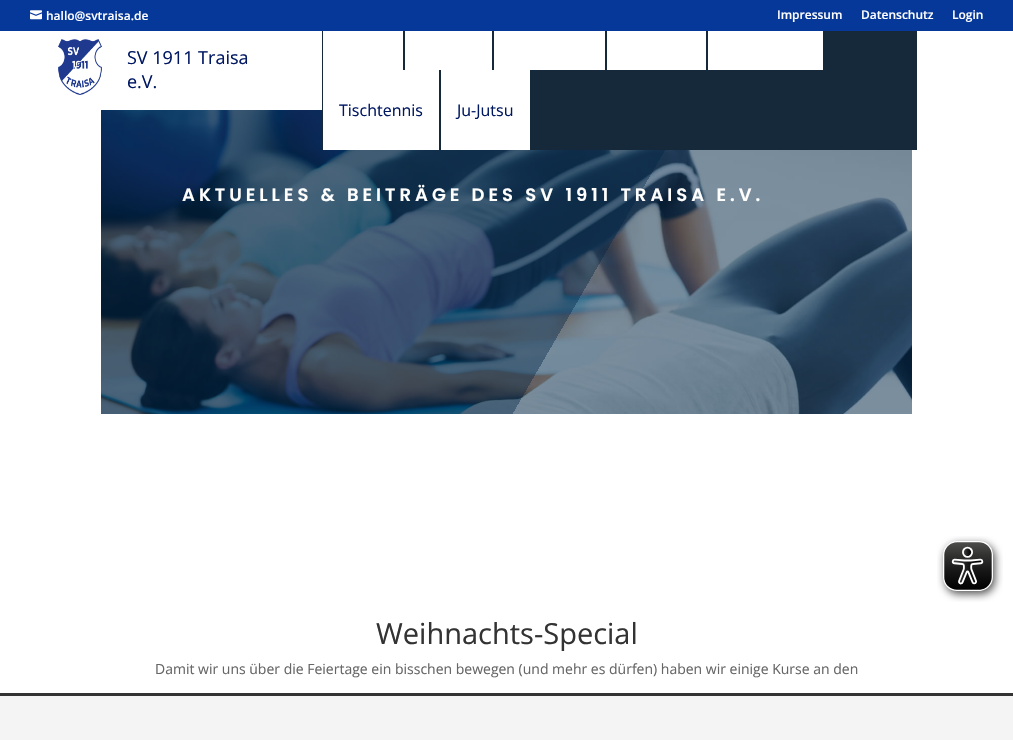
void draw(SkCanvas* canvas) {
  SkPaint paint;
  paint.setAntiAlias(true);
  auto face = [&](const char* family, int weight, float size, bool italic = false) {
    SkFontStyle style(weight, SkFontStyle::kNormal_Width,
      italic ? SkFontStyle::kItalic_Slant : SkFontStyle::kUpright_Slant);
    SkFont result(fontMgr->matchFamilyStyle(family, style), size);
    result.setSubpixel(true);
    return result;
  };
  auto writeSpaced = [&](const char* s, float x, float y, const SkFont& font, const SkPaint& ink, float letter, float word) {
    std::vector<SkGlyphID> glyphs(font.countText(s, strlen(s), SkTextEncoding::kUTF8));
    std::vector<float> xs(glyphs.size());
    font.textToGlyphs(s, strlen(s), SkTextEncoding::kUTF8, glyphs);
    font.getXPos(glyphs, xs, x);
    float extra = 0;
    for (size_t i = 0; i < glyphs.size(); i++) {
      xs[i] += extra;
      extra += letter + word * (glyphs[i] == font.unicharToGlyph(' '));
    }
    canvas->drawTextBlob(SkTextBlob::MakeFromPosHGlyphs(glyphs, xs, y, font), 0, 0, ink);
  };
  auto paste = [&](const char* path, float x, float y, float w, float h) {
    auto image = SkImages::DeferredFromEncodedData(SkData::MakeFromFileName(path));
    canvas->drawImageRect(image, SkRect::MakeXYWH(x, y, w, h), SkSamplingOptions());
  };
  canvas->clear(0xffffffff);
  paint.setColor(0xff06389a);
  canvas->drawRect(SkRect::MakeXYWH(0, 0, 1013, 31), paint);
  paste("img/1.png", 30, 10, 12, 10);
  paste("img/2.png", 101, 110, 811, 304);
  paint.setColor(0xfff4f4f4);
  canvas->drawRect(SkRect::MakeXYWH(0, 696, 1013, 44), paint);
  paint.setColor(0xff333333);
  canvas->drawRect(SkRect::MakeXYWH(0, 693, 1013, 3), paint);
  paste("img/3.png", 58, 39, 44, 56);
  {
    const struct { float x, y, w, h; SkColor color; } items[] = {
      {322, 31, 595, 119, 0xff15293b},
      {323, 31, 80, 39, 0xffffffff},
      {405, 31, 87, 39, 0xffffffff},
      {494, 31, 111, 39, 0xffffffff},
      {607, 31, 99, 39, 0xffffffff},
      {708, 31, 115, 39, 0xffffffff},
      {323, 70, 116, 80, 0xffffffff},
      {441, 70, 89, 80, 0xffffffff},
    };
    for (auto [x, y, w, h, color] : items) {
      paint.setColor(color);
      canvas->drawRect(SkRect::MakeXYWH(x, y, w, h), paint);
    }
  }
  paste("img/4.png", 937, 536, 66, 66);
  auto f0 = face("Open Sans", 600, 12);
  {
    const struct { const char* s; float x, y; } items[] = {
      {"hallo@svtraisa.de", 46, 20},
      {"Impressum", 777, 19},
      {"Datenschutz", 861, 19},
      {"Login", 952, 19},
    };
    for (auto [s, x, y] : items) {
      canvas->drawString(s, x, y, f0, paint);
    }
  }
  auto f1 = face("Poppins", 600, 18);
  writeSpaced("AKTUELLES & BEITRÄGE DES SV 1911 TRAISA E.V.", 182, 201, f1, paint, 4, 0);
  auto f2 = face("Open Sans", 400, 29);
  paint.setColor(0xff333333);
  canvas->drawString("Weihnachts-Special", 376, 644, f2, paint);
  auto f3 = face("Open Sans", 400, 14);
  paint.setColor(0xff666666);
  canvas->drawString("Damit wir uns über die Feiertage ein bisschen bewegen (und mehr es dürfen) haben wir einige Kurse an den", 155, 674, f3, paint);
  auto f4 = face("Open Sans", 400, 18);
  paint.setColor(0xff001762);
  canvas->drawString("SV 1911 Traisa", 127, 64, f4, paint);
  canvas->drawString("e.V.", 127, 88, f4, paint);
  auto f5 = face("Open Sans", 400, 16);
  canvas->drawString("Tischtennis", 339, 116, f5, paint);
  canvas->drawString("Ju-Jutsu", 457, 116, f5, paint);
}
